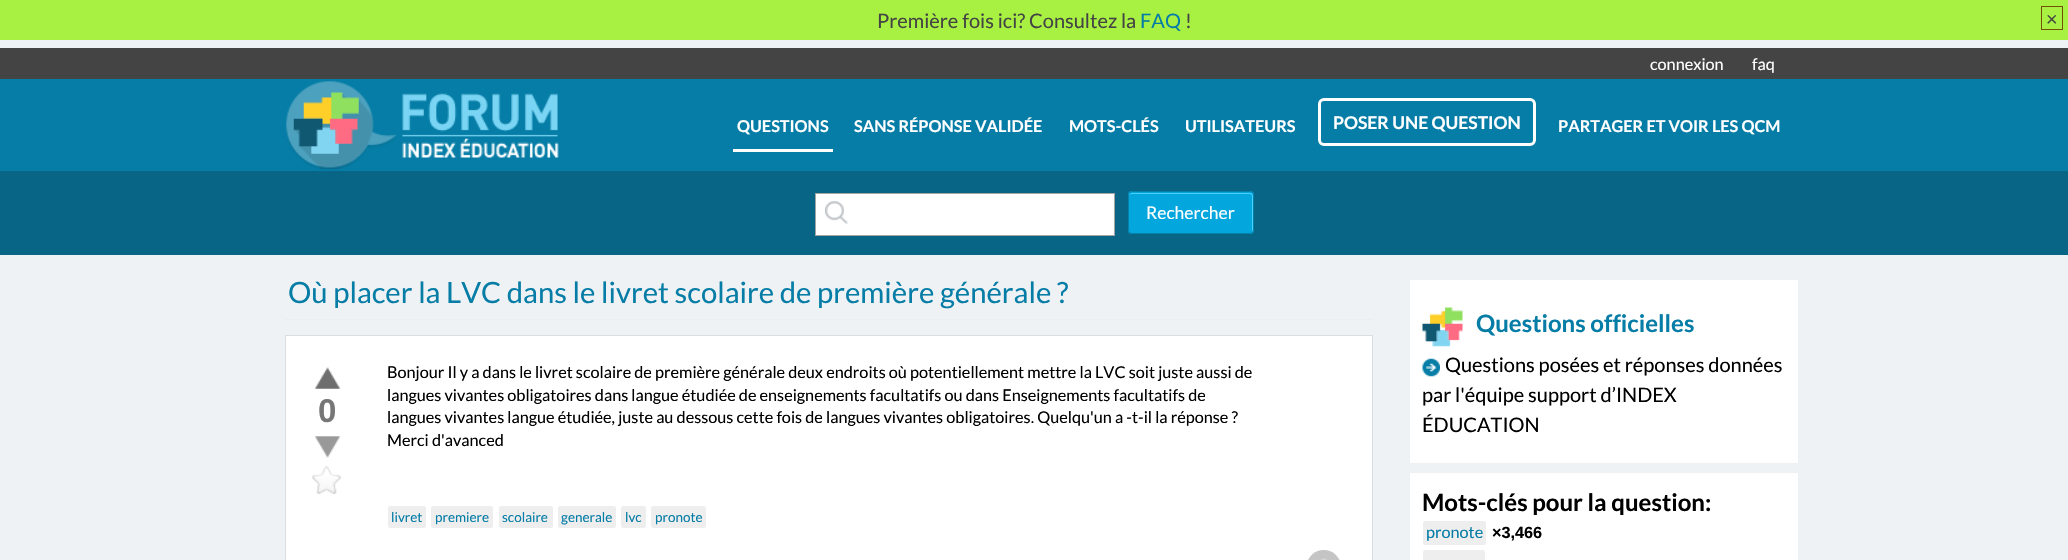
void draw(SkCanvas* canvas) {
  SkPaint paint;
  paint.setAntiAlias(true);
  auto face = [&](const char* family, int weight, float size, bool italic = false) {
    SkFontStyle style(weight, SkFontStyle::kNormal_Width,
      italic ? SkFontStyle::kItalic_Slant : SkFontStyle::kUpright_Slant);
    SkFont result(fontMgr->matchFamilyStyle(family, style), size);
    result.setSubpixel(true);
    return result;
  };
  auto paste = [&](const char* path, float x, float y, float w, float h) {
    auto image = SkImages::DeferredFromEncodedData(SkData::MakeFromFileName(path));
    canvas->drawImageRect(image, SkRect::MakeXYWH(x, y, w, h), SkSamplingOptions());
  };
  auto shape = [&](const char* data, bool evenOdd = false) {
    SkPath result = *SkParsePath::FromSVGString(data);
    if (evenOdd) result.setFillType(SkPathFillType::kEvenOdd);
    return result;
  };
  canvas->clear(0xffeef2f4);
  paint.setColor(0xffa8f042);
  canvas->drawRect(SkRect::MakeXYWH(0, 0, 2068, 40), paint);
  paint.setStroke(true);
  paint.setStrokeWidth(1);
  paint.setColor(0xff735005);
  canvas->drawRect(SkRect::MakeXYWH(2041.5f, 6.5f, 21, 23), paint);
  paint.setStroke(false);
  paint.setColor(0xff067da6);
  canvas->drawRect(SkRect::MakeXYWH(0, 79, 2068, 92), paint);
  paint.setColor(0xff444444);
  canvas->drawRect(SkRect::MakeXYWH(0, 48, 2068, 31), paint);
  paste("img/1.png", 286, 81, 273, 89);
  paint.setColor(0xffffffff);
  canvas->drawRect(SkRect::MakeXYWH(733, 149, 100, 3), paint);
  paint.setStroke(true);
  paint.setStrokeWidth(3);
  canvas->drawRoundRect(SkRect::MakeXYWH(1319.5f, 99.5f, 215, 45), 4.5f, 4.5f, paint);
  paint.setStroke(false);
  paint.setColor(0xff096585);
  canvas->drawRect(SkRect::MakeXYWH(0, 171, 2068, 84), paint);
  paint.setColor(0xffffffff);
  canvas->drawRect(SkRect::MakeXYWH(816, 194, 298, 41), paint);
  paste("img/2.png", 825, 201, 23, 23);
  paint.setStroke(true);
  paint.setStrokeWidth(1);
  paint.setColor(0xffa4a4a4);
  canvas->drawRect(SkRect::MakeXYWH(815.5f, 193.5f, 299, 42), paint);
  paint.setStroke(false);
  paint.setColor(0xff03a7dd);
  canvas->drawRoundRect(SkRect::MakeXYWH(1128, 191, 126, 43), 4, 4, paint);
  paint.setColor(0xff49d0fd);
  canvas->drawPath(shape("M1131 194H1250C1251 194 1252 195 1252 196V233C1252 232 1253 231 1253 230V196C1253 194 1252 193 1250 193H1132C1130 193 1129 194 1129 196C1129 195 1130 194 1131 194Z"), paint);
  paint.setStroke(true);
  paint.setColor(0xff0281ab);
  canvas->drawRoundRect(SkRect::MakeXYWH(1128.5f, 191.5f, 125, 42), 3.5f, 3.5f, paint);
  paint.setStroke(false);
  paint.setColor(0xffe8eef1);
  canvas->drawRect(SkRect::MakeXYWH(285, 319, 1088, 1), paint);
  paint.setColor(0xffffffff);
  canvas->drawRect(SkRect::MakeXYWH(285.5f, 335.5f, 1087, 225), paint);
  paint.setStroke(true);
  paint.setColor(0xffd7dfe2);
  canvas->drawRect(SkRect::MakeXYWH(285.5f, 335.5f, 1087, 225), paint);
  paste("img/3.png", 314, 367, 27, 22);
  paste("img/4.png", 315, 436, 26, 22);
  paste("img/5.png", 312, 466, 30, 28);
  paint.setStroke(false);
  paint.setColor(0xffeeeeee);
  canvas->drawRoundRect(SkRect::MakeXYWH(388, 506, 38, 22), 2.5f, 2.5f, paint);
  canvas->drawRoundRect(SkRect::MakeXYWH(431, 506, 62, 22), 2.5f, 2.5f, paint);
  canvas->drawRoundRect(SkRect::MakeXYWH(499, 506, 54, 22), 2.5f, 2.5f, paint);
  canvas->drawRoundRect(SkRect::MakeXYWH(558, 506, 58, 22), 2.5f, 2.5f, paint);
  canvas->drawRoundRect(SkRect::MakeXYWH(621, 506, 25, 22), 2.5f, 2.5f, paint);
  canvas->drawRoundRect(SkRect::MakeXYWH(651, 506, 55, 22), 2.5f, 2.5f, paint);
  paste("img/6.png", 1308, 550, 32, 10);
  paint.setColor(0xffffffff);
  canvas->drawRect(SkRect::MakeXYWH(1410, 280, 388, 183), paint);
  paste("img/7.png", 1422, 307, 41, 40);
  paste("img/8.png", 1422, 358, 18, 19);
  canvas->drawRect(SkRect::MakeXYWH(1410, 473, 388, 87), paint);
  paint.setColor(0xffeeeeee);
  canvas->drawRoundRect(SkRect::MakeXYWH(1423, 521, 63, 24), 2.5f, 2.5f, paint);
  canvas->drawRoundRect(SkRect::MakeXYWH(1423, 550, 62, 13), 2.5f, 2.5f, paint);
  auto f0 = face("Lato", 400, 20);
  paint.setColor(0xff444444);
  canvas->drawString("Première fois ici? Consultez la", 877, 28, f0, paint);
  paint.setColor(0xff067da6);
  canvas->drawString("FAQ", 1140, 28, f0, paint);
  paint.setColor(0xff444444);
  canvas->drawString("!", 1185, 28, f0, paint);
  canvas->drawString("×", 2046, 26, f0, paint);
  auto f1 = face("Lato", 400, 16.25f);
  paint.setColor(0xffffffff);
  canvas->drawString("connexion", 1650, 70, f1, paint);
  canvas->drawString("faq", 1752, 70, f1, paint);
  auto f2 = face("Lato", 700, 16.25f);
  {
    const struct { const char* s; float x, y; } items[] = {
      {"QUESTIONS", 737, 132},
      {"SANS RÉPONSE VALIDÉE", 854, 132},
      {"MOTS-CLÉS", 1069, 132},
      {"UTILISATEURS", 1185, 132},
    };
    for (auto [s, x, y] : items) {
      canvas->drawString(s, x, y, f2, paint);
    }
  }
  auto f3 = face("Lato", 700, 17.5f);
  canvas->drawString("POSER UNE QUESTION", 1333, 129, f3, paint);
  canvas->drawString("PARTAGER ET VOIR LES QCM", 1558, 132, f2, paint);
  auto f4 = face("Lato", 400, 17.5f);
  canvas->drawString("Rechercher", 1146, 219, f4, paint);
  auto f5 = face("Lato", 400, 29.25f);
  paint.setColor(0xff067da6);
  canvas->drawString("Où placer la LVC dans le livret scolaire de première générale ?", 288, 303, f5, paint);
  auto f6 = face("Liberation Sans", 700, 33);
  paint.setColor(0xff777777);
  canvas->drawString("0", 318, 422, f6, paint);
  paint.setColor(0xff000000);
  {
    const struct { const char* s; float x, y; } items[] = {
      {"Bonjour Il y a dans le livret scolaire de première générale deux endroits où potentiellement mettre la LVC soit juste aussi de", 387, 378},
      {"langues vivantes obligatoires dans langue étudiée de enseignements facultatifs ou dans Enseignements facultatifs de", 387, 401},
      {"langues vivantes langue étudiée, juste au dessous cette fois de langues vivantes obligatoires. Quelqu'un a -t-il la réponse ?", 387, 423},
      {"Merci d'avanced", 387, 446},
    };
    for (auto [s, x, y] : items) {
      canvas->drawString(s, x, y, f1, paint);
    }
  }
  auto f7 = face("Lato", 400, 13.5f);
  paint.setColor(0xff067da6);
  {
    const struct { const char* s; float x, y; } items[] = {
      {"livret", 391, 522},
      {"premiere", 435, 522},
      {"scolaire", 502, 522},
      {"generale", 561, 522},
      {"lvc", 625, 522},
      {"pronote", 655, 522},
    };
    for (auto [s, x, y] : items) {
      canvas->drawString(s, x, y, f7, paint);
    }
  }
  auto f8 = face("Lato", 700, 24);
  canvas->drawString("Questions officielles", 1476, 332, f8, paint);
  paint.setColor(0xff000000);
  {
    const struct { const char* s; float x, y; } items[] = {
      {"Questions posées et réponses données", 1445, 372},
      {"par l'équipe support d’INDEX", 1422, 402},
      {"ÉDUCATION", 1422, 432},
    };
    for (auto [s, x, y] : items) {
      canvas->drawString(s, x, y, f0, paint);
    }
  }
  canvas->drawString("Mots-clés pour la question:", 1422, 511, f8, paint);
  paint.setColor(0xff067da6);
  canvas->drawString("pronote", 1426, 538, f1, paint);
  auto f9 = face("Liberation Sans", 700, 16.25f);
  paint.setColor(0xff000000);
  canvas->drawString("×3,466", 1492, 538, f9, paint);
}
